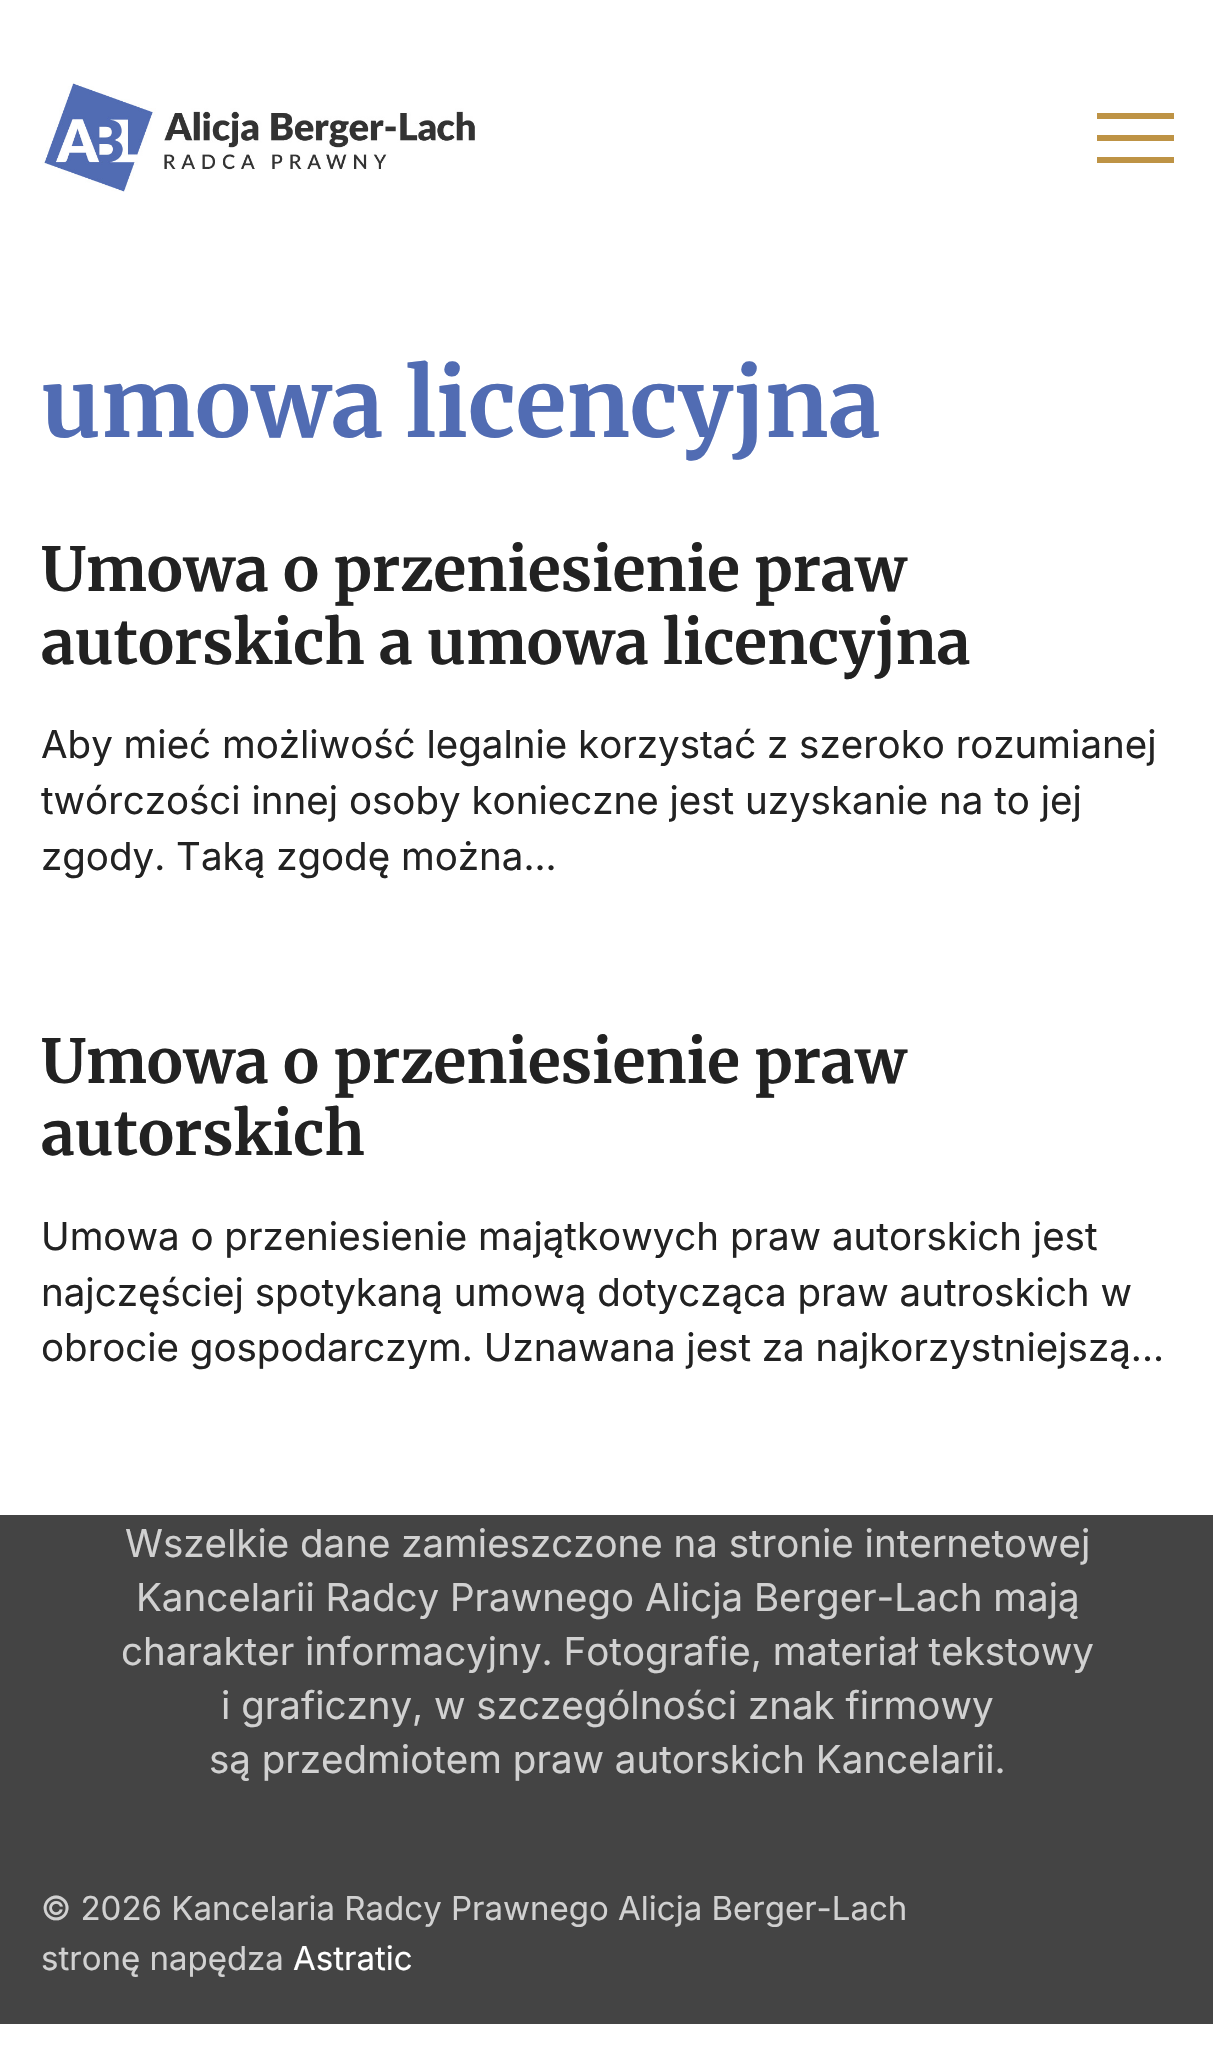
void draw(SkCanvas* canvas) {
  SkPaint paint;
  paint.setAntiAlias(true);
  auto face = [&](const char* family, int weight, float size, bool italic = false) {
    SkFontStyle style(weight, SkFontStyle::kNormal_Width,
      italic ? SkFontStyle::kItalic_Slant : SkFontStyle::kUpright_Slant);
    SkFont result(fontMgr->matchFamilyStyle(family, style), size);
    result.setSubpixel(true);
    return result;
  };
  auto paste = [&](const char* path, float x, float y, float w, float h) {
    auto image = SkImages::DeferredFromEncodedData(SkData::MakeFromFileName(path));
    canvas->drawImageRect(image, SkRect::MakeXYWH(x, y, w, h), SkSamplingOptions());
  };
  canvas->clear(0xffffffff);
  paste("img/1.png", 42, 81, 433, 111);
  {
    const struct { float x, y, w, h; SkColor color; } items[] = {
      {1097, 113, 77, 6, 0xffbe9345},
      {1097, 135, 77, 6, 0xffbe9345},
      {1097, 157, 77, 6, 0xffbe9345},
      {0, 1515, 1213, 509, 0xff444444},
    };
    for (auto [x, y, w, h, color] : items) {
      paint.setColor(color);
      canvas->drawRect(SkRect::MakeXYWH(x, y, w, h), paint);
    }
  }
  auto f0 = face("Merriweather", 700, 93.5f);
  paint.setColor(0xff516cb3);
  canvas->drawString("umowa licencyjna", 41, 437, f0, paint);
  auto f1 = face("Merriweather", 700, 60.5f);
  paint.setColor(0xff222222);
  canvas->drawString("Umowa o przeniesienie praw", 41, 591, f1, paint);
  canvas->drawString("autorskich a umowa licencyjna", 41, 664, f1, paint);
  auto f2 = face("Inter", 400, 38.5f);
  {
    const struct { const char* s; float x, y; } items[] = {
      {"Aby mieć możliwość legalnie korzystać z szeroko rozumianej", 41, 758},
      {"twórczości innej osoby konieczne jest uzyskanie na to jej", 41, 814},
      {"zgody. Taką zgodę można...", 41, 870},
    };
    for (auto [s, x, y] : items) {
      canvas->drawString(s, x, y, f2, paint);
    }
  }
  canvas->drawString("Umowa o przeniesienie praw", 41, 1083, f1, paint);
  canvas->drawString("autorskich", 41, 1155, f1, paint);
  {
    const struct { const char* s; float x, y; } items[] = {
      {"Umowa o przeniesienie majątkowych praw autorskich jest", 41, 1250},
      {"najczęściej spotykaną umową dotycząca praw autroskich w", 41, 1306},
      {"obrocie gospodarczym. Uznawana jest za najkorzystniejszą...", 41, 1361},
    };
    for (auto [s, x, y] : items) {
      canvas->drawString(s, x, y, f2, paint);
    }
  }
  paint.setColor(0xffd1d1d1);
  {
    const struct { const char* s; float x, y; } items[] = {
      {"Wszelkie dane zamieszczone na stronie internetowej", 125, 1557},
      {"Kancelarii Radcy Prawnego Alicja Berger-Lach mają", 136, 1611},
      {"charakter informacyjny. Fotografie, materiał tekstowy", 121, 1665},
      {"i graficzny, w szczególności znak firmowy", 221, 1719},
      {"są przedmiotem praw autorskich Kancelarii.", 209, 1773},
    };
    for (auto [s, x, y] : items) {
      canvas->drawString(s, x, y, f2, paint);
    }
  }
  auto f3 = face("Inter", 400, 33);
  canvas->drawString("© 2026 Kancelaria Radcy Prawnego Alicja Berger-Lach", 41, 1920, f3, paint);
  canvas->drawString("stronę napędza", 41, 1970, f3, paint);
  paint.setColor(0xffffffff);
  canvas->drawString("Astratic", 293, 1970, f3, paint);
}
